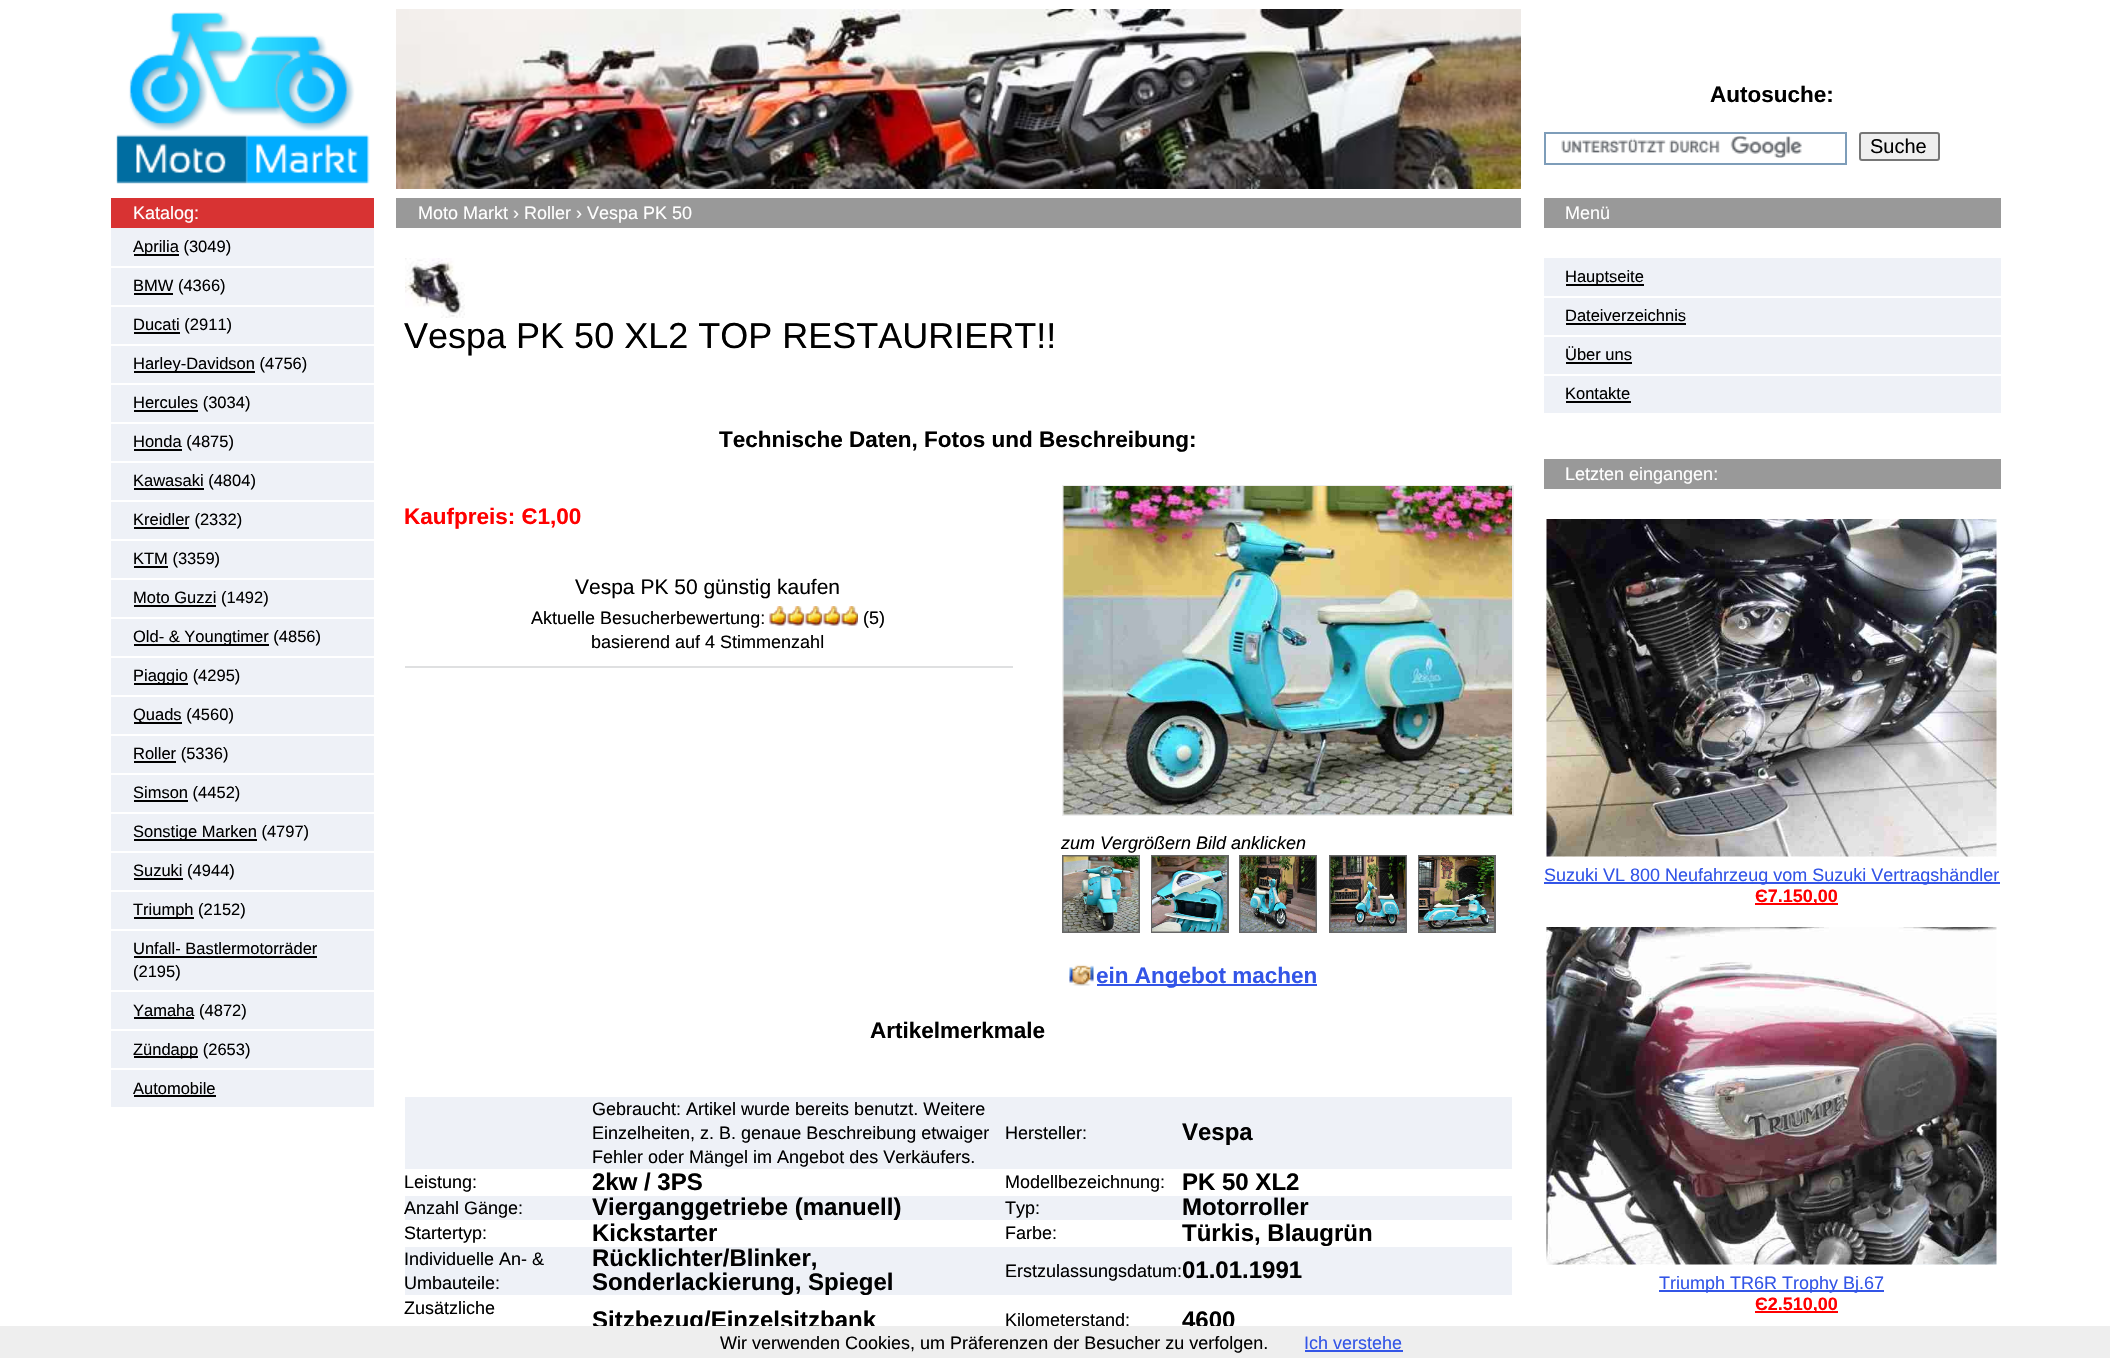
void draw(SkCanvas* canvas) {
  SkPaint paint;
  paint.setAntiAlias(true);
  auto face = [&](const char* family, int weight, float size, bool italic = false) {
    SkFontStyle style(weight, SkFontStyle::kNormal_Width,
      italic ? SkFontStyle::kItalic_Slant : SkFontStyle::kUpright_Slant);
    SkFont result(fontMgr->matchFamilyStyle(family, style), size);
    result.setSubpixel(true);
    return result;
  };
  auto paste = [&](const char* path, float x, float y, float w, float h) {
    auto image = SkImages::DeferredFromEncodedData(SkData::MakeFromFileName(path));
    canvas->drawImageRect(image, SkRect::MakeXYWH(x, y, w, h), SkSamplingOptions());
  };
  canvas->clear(0xffffffff);
  paste("img/1.png", 116, 12, 254, 172);
  paste("img/2.png", 396, 9, 1125, 180);
  paint.setStroke(true);
  paint.setStrokeWidth(2);
  paint.setColor(0xff7e9db9);
  canvas->drawRect(SkRect::MakeXYWH(1545, 133, 301, 31), paint);
  paste("img/3.png", 1561, 136, 241, 22);
  paint.setStroke(false);
  paint.setColor(0xffefefef);
  canvas->drawRoundRect(SkRect::MakeXYWH(1860, 133, 79, 27), 2, 2, paint);
  paint.setStroke(true);
  paint.setColor(0xff767676);
  canvas->drawRoundRect(SkRect::MakeXYWH(1860, 133, 79, 27), 2, 2, paint);
  paint.setStroke(false);
  {
    const struct { float x, y, w, h; SkColor color; } items[] = {
      {111, 198, 263, 30, 0xffd83333},
      {111, 228, 263, 879, 0xffeef1f7},
      {111, 266, 263, 2, 0xffffffff},
      {134, 254, 45, 2, 0xff000000},
      {111, 305, 263, 2, 0xffffffff},
      {134, 293, 39, 2, 0xff000000},
      {111, 344, 263, 2, 0xffffffff},
      {134, 332, 46, 2, 0xff000000},
      {111, 383, 263, 2, 0xffffffff},
      {134, 371, 121, 2, 0xff000000},
      {111, 422, 263, 2, 0xffffffff},
      {134, 410, 64, 2, 0xff000000},
      {111, 461, 263, 2, 0xffffffff},
      {134, 449, 48, 2, 0xff000000},
      {111, 500, 263, 2, 0xffffffff},
      {134, 488, 70, 2, 0xff000000},
      {111, 539, 263, 2, 0xffffffff},
      {134, 527, 55, 2, 0xff000000},
      {111, 578, 263, 2, 0xffffffff},
      {134, 566, 34, 2, 0xff000000},
      {111, 617, 263, 2, 0xffffffff},
      {134, 605, 82, 2, 0xff000000},
      {111, 656, 263, 2, 0xffffffff},
      {134, 644, 135, 2, 0xff000000},
      {111, 695, 263, 2, 0xffffffff},
      {134, 683, 54, 2, 0xff000000},
      {111, 734, 263, 2, 0xffffffff},
      {134, 722, 48, 2, 0xff000000},
      {111, 773, 263, 2, 0xffffffff},
      {134, 761, 42, 2, 0xff000000},
      {111, 812, 263, 2, 0xffffffff},
      {134, 800, 54, 2, 0xff000000},
      {111, 851, 263, 2, 0xffffffff},
      {134, 839, 123, 2, 0xff000000},
      {111, 890, 263, 2, 0xffffffff},
      {134, 878, 49, 2, 0xff000000},
      {111, 929, 263, 2, 0xffffffff},
      {134, 917, 60, 2, 0xff000000},
      {111, 990, 263, 2, 0xffffffff},
      {134, 956, 183, 2, 0xff000000},
      {111, 1029, 263, 2, 0xffffffff},
      {134, 1017, 60, 2, 0xff000000},
      {111, 1068, 263, 2, 0xffffffff},
      {134, 1056, 64, 2, 0xff000000},
      {134, 1095, 82, 2, 0xff000000},
      {396, 198, 1125, 30, 0xff999999},
    };
    for (auto [x, y, w, h, color] : items) {
      paint.setColor(color);
      canvas->drawRect(SkRect::MakeXYWH(x, y, w, h), paint);
    }
  }
  paste("img/4.png", 405, 258, 60, 60);
  paint.setColor(0xffdfe0e1);
  canvas->drawRect(SkRect::MakeXYWH(405, 666, 608, 2), paint);
  paste("img/5.png", 769, 606, 89, 20);
  paint.setStroke(true);
  paint.setColor(0xffeeeeee);
  canvas->drawRect(SkRect::MakeXYWH(1063, 486, 450, 329), paint);
  paste("img/6.png", 1063, 486, 449, 329);
  paint.setColor(0xff666666);
  canvas->drawRect(SkRect::MakeXYWH(1063, 856, 76, 76), paint);
  paste("img/7.png", 1063, 856, 76, 76);
  canvas->drawRect(SkRect::MakeXYWH(1152, 856, 76, 76), paint);
  paste("img/8.png", 1152, 856, 75, 76);
  canvas->drawRect(SkRect::MakeXYWH(1240, 856, 76, 76), paint);
  paste("img/9.png", 1240, 856, 76, 76);
  canvas->drawRect(SkRect::MakeXYWH(1330, 856, 76, 76), paint);
  paste("img/10.png", 1330, 856, 76, 76);
  canvas->drawRect(SkRect::MakeXYWH(1419, 856, 76, 76), paint);
  paste("img/11.png", 1419, 856, 75, 76);
  paste("img/12.png", 1069, 964, 25, 22);
  paint.setStroke(false);
  {
    const struct { float x, y, w, h; SkColor color; } items[] = {
      {1097, 984, 220, 2, 0xff3355e7},
      {405, 1097, 1107, 72, 0xffeef1f7},
      {405, 1196, 1107, 24, 0xffeef1f7},
      {405, 1247, 1107, 48, 0xffeef1f7},
      {1544, 198, 457, 30, 0xff999999},
      {1544, 258, 457, 155, 0xffeef1f7},
      {1544, 296, 457, 2, 0xffffffff},
      {1566, 284, 78, 2, 0xff000000},
      {1544, 335, 457, 2, 0xffffffff},
      {1566, 323, 120, 2, 0xff000000},
      {1544, 374, 457, 2, 0xffffffff},
      {1566, 362, 66, 2, 0xff000000},
      {1566, 401, 65, 2, 0xff000000},
      {1544, 459, 457, 30, 0xff999999},
    };
    for (auto [x, y, w, h, color] : items) {
      paint.setColor(color);
      canvas->drawRect(SkRect::MakeXYWH(x, y, w, h), paint);
    }
  }
  paste("img/13.png", 1546, 519, 451, 338);
  paint.setColor(0xff3355e7);
  canvas->drawRect(SkRect::MakeXYWH(1544, 882, 456, 2), paint);
  paint.setColor(0xffff0000);
  canvas->drawRect(SkRect::MakeXYWH(1755, 903, 83, 2), paint);
  paste("img/14.png", 1546, 927, 451, 338);
  paint.setColor(0xff3355e7);
  canvas->drawRect(SkRect::MakeXYWH(1659, 1290, 225, 2), paint);
  paint.setColor(0xffff0000);
  canvas->drawRect(SkRect::MakeXYWH(1755, 1311, 83, 2), paint);
  auto f0 = face("Liberation Sans", 700, 22.5f);
  paint.setColor(0xff000000);
  canvas->drawString("Autosuche:", 1710, 102, f0, paint);
  auto f1 = face("Liberation Sans", 400, 20);
  canvas->drawString("Suche", 1870, 153, f1, paint);
  auto f2 = face("Liberation Sans", 400, 18);
  paint.setColor(0xffffffff);
  canvas->drawString("Katalog:", 133, 219, f2, paint);
  auto f3 = face("Liberation Sans", 400, 16.5f);
  paint.setColor(0xff000000);
  {
    const struct { const char* s; float x, y; } items[] = {
      {"Aprilia (3049)", 133, 252},
      {"BMW (4366)", 133, 291},
      {"Ducati (2911)", 133, 330},
      {"Harley-Davidson (4756)", 133, 369},
      {"Hercules (3034)", 133, 408},
      {"Honda (4875)", 133, 447},
      {"Kawasaki (4804)", 133, 486},
      {"Kreidler (2332)", 133, 525},
      {"KTM (3359)", 133, 564},
      {"Moto Guzzi (1492)", 133, 603},
      {"Old- & Youngtimer (4856)", 133, 642},
      {"Piaggio (4295)", 133, 681},
      {"Quads (4560)", 133, 720},
      {"Roller (5336)", 133, 759},
      {"Simson (4452)", 133, 798},
      {"Sonstige Marken (4797)", 133, 837},
      {"Suzuki (4944)", 133, 876},
      {"Triumph (2152)", 133, 915},
      {"Unfall- Bastlermotorräder", 133, 954},
      {"(2195)", 133, 977},
      {"Yamaha (4872)", 133, 1016},
      {"Zündapp (2653)", 133, 1055},
      {"Automobile", 133, 1094},
    };
    for (auto [s, x, y] : items) {
      canvas->drawString(s, x, y, f3, paint);
    }
  }
  paint.setColor(0xffffffff);
  canvas->drawString("Moto Markt › Roller › Vespa PK 50", 418, 219, f2, paint);
  auto f4 = face("Liberation Sans", 400, 36);
  paint.setColor(0xff000000);
  canvas->drawString("Vespa PK 50 XL2 TOP RESTAURIERT!!", 404, 348, f4, paint);
  canvas->drawString("Technische Daten, Fotos und Beschreibung:", 719, 447, f0, paint);
  paint.setColor(0xffff0000);
  canvas->drawString("Kaufpreis: Є1,00", 404, 524, f0, paint);
  auto f5 = face("Liberation Sans", 400, 21);
  paint.setColor(0xff000000);
  canvas->drawString("Vespa PK 50 günstig kaufen", 575, 594, f5, paint);
  {
    const struct { const char* s; float x, y; } items[] = {
      {"Aktuelle Besucherbewertung:", 531, 624},
      {"(5)", 863, 624},
      {"basierend auf 4 Stimmenzahl", 591, 648},
    };
    for (auto [s, x, y] : items) {
      canvas->drawString(s, x, y, f2, paint);
    }
  }
  auto f6 = face("Liberation Sans", 400, 18, true);
  canvas->drawString("zum Vergrößern Bild anklicken", 1061, 849, f6, paint);
  paint.setColor(0xff3355e7);
  canvas->drawString("ein Angebot machen", 1096, 983, f0, paint);
  paint.setColor(0xff000000);
  canvas->drawString("Artikelmerkmale", 870, 1038, f0, paint);
  {
    const struct { const char* s; float x, y; } items[] = {
      {"Gebraucht: Artikel wurde bereits benutzt. Weitere", 592, 1115},
      {"Einzelheiten, z. B. genaue Beschreibung etwaiger", 592, 1139},
      {"Fehler oder Mängel im Angebot des Verkäufers.", 592, 1163},
      {"Hersteller:", 1005, 1139},
    };
    for (auto [s, x, y] : items) {
      canvas->drawString(s, x, y, f2, paint);
    }
  }
  auto f7 = face("Liberation Sans", 700, 24);
  canvas->drawString("Vespa", 1182, 1140, f7, paint);
  canvas->drawString("Leistung:", 404, 1188, f2, paint);
  canvas->drawString("2kw / 3PS", 592, 1190, f7, paint);
  canvas->drawString("Modellbezeichnung:", 1005, 1188, f2, paint);
  canvas->drawString("PK 50 XL2", 1182, 1190, f7, paint);
  canvas->drawString("Anzahl Gänge:", 404, 1214, f2, paint);
  canvas->drawString("Vierganggetriebe (manuell)", 592, 1215, f7, paint);
  canvas->drawString("Typ:", 1005, 1214, f2, paint);
  canvas->drawString("Motorroller", 1182, 1215, f7, paint);
  canvas->drawString("Startertyp:", 404, 1239, f2, paint);
  canvas->drawString("Kickstarter", 592, 1241, f7, paint);
  canvas->drawString("Farbe:", 1005, 1239, f2, paint);
  canvas->drawString("Türkis, Blaugrün", 1182, 1241, f7, paint);
  canvas->drawString("Individuelle An- &", 404, 1265, f2, paint);
  canvas->drawString("Umbauteile:", 404, 1289, f2, paint);
  canvas->drawString("Rücklichter/Blinker,", 592, 1266, f7, paint);
  canvas->drawString("Sonderlackierung, Spiegel", 592, 1290, f7, paint);
  canvas->drawString("Erstzulassungsdatum:", 1005, 1277, f2, paint);
  canvas->drawString("01.01.1991", 1182, 1278, f7, paint);
  canvas->drawString("Zusätzliche", 404, 1314, f2, paint);
  canvas->drawString("Sitzbezug/Einzelsitzbank", 592, 1328, f7, paint);
  canvas->drawString("Kilometerstand:", 1005, 1326, f2, paint);
  canvas->drawString("4600", 1182, 1328, f7, paint);
  paint.setColor(0xffffffff);
  canvas->drawString("Menü", 1565, 219, f2, paint);
  paint.setColor(0xff000000);
  {
    const struct { const char* s; float x, y; } items[] = {
      {"Hauptseite", 1565, 282},
      {"Dateiverzeichnis", 1565, 321},
      {"Über uns", 1565, 360},
      {"Kontakte", 1565, 399},
    };
    for (auto [s, x, y] : items) {
      canvas->drawString(s, x, y, f3, paint);
    }
  }
  paint.setColor(0xffffffff);
  canvas->drawString("Letzten eingangen:", 1565, 480, f2, paint);
  paint.setColor(0xff3355e7);
  canvas->drawString("Suzuki VL 800 Neufahrzeug vom Suzuki Vertragshändler", 1544, 881, f2, paint);
  auto f8 = face("Liberation Sans", 700, 18);
  paint.setColor(0xffff0000);
  canvas->drawString("Є7.150,00", 1755, 902, f8, paint);
  paint.setColor(0xff3355e7);
  canvas->drawString("Triumph TR6R Trophy Bj.67", 1659, 1289, f2, paint);
  paint.setColor(0xffff0000);
  canvas->drawString("Є2.510,00", 1755, 1310, f8, paint);
  paint.setColor(0xffeeeeee);
  canvas->drawRect(SkRect::MakeXYWH(0, 1326, 2110, 32), paint);
  paint.setColor(0xff000000);
  canvas->drawString("Wir verwenden Cookies, um Präferenzen der Besucher zu verfolgen.", 720, 1349, f2, paint);
  paint.setColor(0xff3355e7);
  canvas->drawString("Ich verstehe", 1304, 1349, f2, paint);
  canvas->drawRect(SkRect::MakeXYWH(1305, 1350, 98, 2), paint);
}
